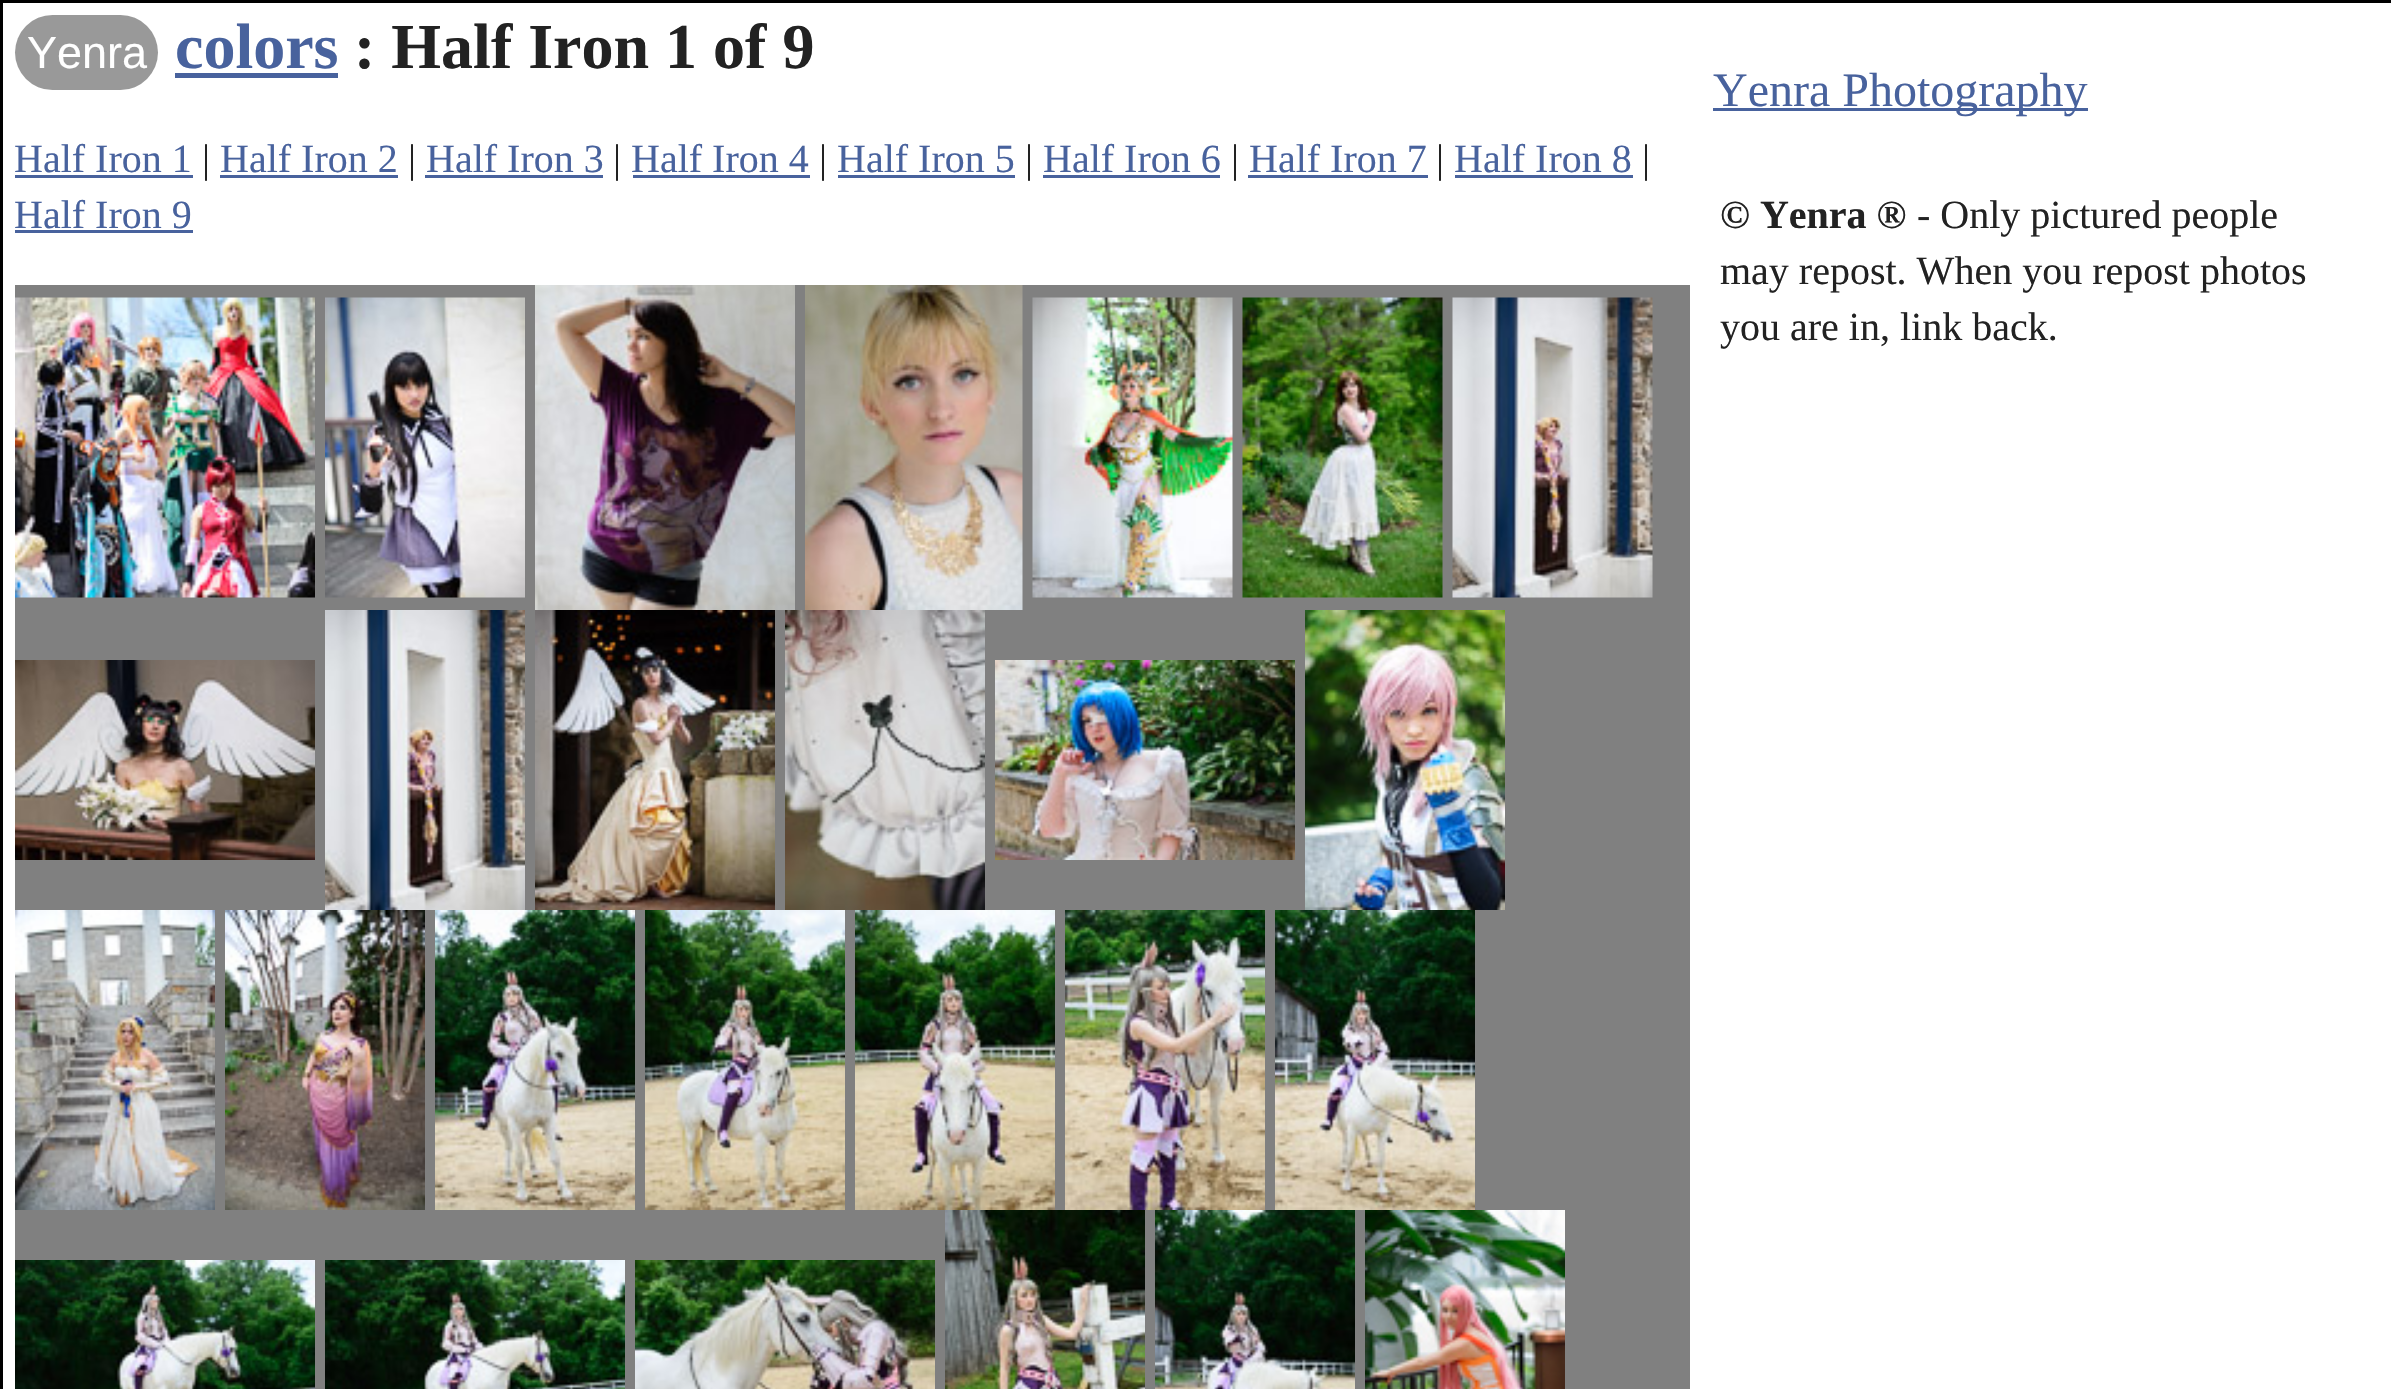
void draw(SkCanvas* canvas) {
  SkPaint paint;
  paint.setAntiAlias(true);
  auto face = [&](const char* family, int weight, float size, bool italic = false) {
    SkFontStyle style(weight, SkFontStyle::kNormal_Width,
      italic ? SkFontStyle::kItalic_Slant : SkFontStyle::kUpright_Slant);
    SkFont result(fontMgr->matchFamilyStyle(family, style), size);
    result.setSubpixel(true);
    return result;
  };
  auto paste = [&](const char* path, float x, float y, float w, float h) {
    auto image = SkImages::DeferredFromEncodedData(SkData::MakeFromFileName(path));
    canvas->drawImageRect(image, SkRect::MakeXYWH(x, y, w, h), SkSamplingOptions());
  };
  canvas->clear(0xffffffff);
  paint.setColor(0xff000000);
  canvas->drawRect(SkRect::MakeXYWH(0, 0, 2391, 3), paint);
  canvas->drawRect(SkRect::MakeXYWH(0, 0, 3, 1389), paint);
  paint.setColor(0xff999999);
  canvas->drawRoundRect(SkRect::MakeXYWH(15, 15, 143, 75), 37.5f, 37.5f, paint);
  {
    const struct { float x, y, w, h; SkColor color; } items[] = {
      {175, 73, 163, 5, 0xff48629d},
      {15, 175, 178, 3, 0xff48629d},
      {220, 175, 178, 3, 0xff48629d},
      {425, 175, 178, 3, 0xff48629d},
      {633, 175, 177, 3, 0xff48629d},
      {838, 175, 177, 3, 0xff48629d},
      {1043, 175, 177, 3, 0xff48629d},
      {1248, 175, 180, 3, 0xff48629d},
      {1455, 175, 178, 3, 0xff48629d},
      {15, 230, 178, 3, 0xff48629d},
      {15, 285, 1675, 1104, 0xff808080},
    };
    for (auto [x, y, w, h, color] : items) {
      paint.setColor(color);
      canvas->drawRect(SkRect::MakeXYWH(x, y, w, h), paint);
    }
  }
  paste("img/1.png", 15, 297, 300, 301);
  paste("img/2.png", 325, 297, 200, 301);
  paste("img/3.png", 535, 285, 260, 325);
  paste("img/4.png", 805, 285, 218, 325);
  paste("img/5.png", 1032, 297, 201, 301);
  paste("img/6.png", 1242, 297, 201, 301);
  paste("img/7.png", 1452, 297, 201, 301);
  paste("img/8.png", 15, 660, 300, 200);
  paste("img/9.png", 325, 610, 200, 300);
  paste("img/10.png", 535, 610, 240, 300);
  paste("img/11.png", 785, 610, 200, 300);
  paste("img/12.png", 995, 660, 300, 200);
  paste("img/13.png", 1305, 610, 200, 300);
  paste("img/14.png", 15, 910, 200, 300);
  paste("img/15.png", 225, 910, 200, 300);
  paste("img/16.png", 435, 910, 200, 300);
  paste("img/17.png", 645, 910, 200, 300);
  paste("img/18.png", 855, 910, 200, 300);
  paste("img/19.png", 1065, 910, 200, 300);
  paste("img/20.png", 1275, 910, 200, 300);
  paste("img/21.png", 15, 1260, 300, 129);
  paste("img/22.png", 325, 1260, 300, 129);
  paste("img/23.png", 635, 1260, 300, 129);
  paste("img/24.png", 945, 1210, 200, 179);
  paste("img/25.png", 1155, 1210, 200, 179);
  paste("img/26.png", 1365, 1210, 200, 179);
  paint.setColor(0xff48629d);
  canvas->drawRect(SkRect::MakeXYWH(1713, 108, 375, 3), paint);
  auto f0 = face("Liberation Sans", 400, 45);
  paint.setColor(0xffffffff);
  canvas->drawString("Yenra", 27, 68, f0, paint);
  auto f1 = face("Liberation Serif", 700, 64);
  paint.setColor(0xff48629d);
  canvas->drawString("colors", 175, 68, f1, paint);
  paint.setColor(0xff222222);
  canvas->drawString(": Half Iron 1 of 9", 354, 68, f1, paint);
  auto f2 = face("Liberation Serif", 400, 40);
  paint.setColor(0xff48629d);
  canvas->drawString("Half Iron 1", 14, 172, f2, paint);
  paint.setColor(0xff222222);
  canvas->drawString("|", 202, 172, f2, paint);
  paint.setColor(0xff48629d);
  canvas->drawString("Half Iron 2", 220, 172, f2, paint);
  paint.setColor(0xff222222);
  canvas->drawString("|", 408, 172, f2, paint);
  paint.setColor(0xff48629d);
  canvas->drawString("Half Iron 3", 426, 172, f2, paint);
  paint.setColor(0xff222222);
  canvas->drawString("|", 613, 172, f2, paint);
  paint.setColor(0xff48629d);
  canvas->drawString("Half Iron 4", 631, 172, f2, paint);
  paint.setColor(0xff222222);
  canvas->drawString("|", 819, 172, f2, paint);
  paint.setColor(0xff48629d);
  canvas->drawString("Half Iron 5", 837, 172, f2, paint);
  paint.setColor(0xff222222);
  canvas->drawString("|", 1025, 172, f2, paint);
  paint.setColor(0xff48629d);
  canvas->drawString("Half Iron 6", 1043, 172, f2, paint);
  paint.setColor(0xff222222);
  canvas->drawString("|", 1231, 172, f2, paint);
  paint.setColor(0xff48629d);
  canvas->drawString("Half Iron 7", 1249, 172, f2, paint);
  paint.setColor(0xff222222);
  canvas->drawString("|", 1436, 172, f2, paint);
  paint.setColor(0xff48629d);
  canvas->drawString("Half Iron 8", 1454, 172, f2, paint);
  paint.setColor(0xff222222);
  canvas->drawString("|", 1642, 172, f2, paint);
  paint.setColor(0xff48629d);
  canvas->drawString("Half Iron 9", 14, 228, f2, paint);
  auto f3 = face("Liberation Serif", 400, 48);
  canvas->drawString("Yenra Photography", 1713, 106, f3, paint);
  auto f4 = face("Liberation Serif", 700, 40);
  paint.setColor(0xff222222);
  canvas->drawString("© Yenra ®", 1720, 228, f4, paint);
  {
    const struct { const char* s; float x, y; } items[] = {
      {"- Only pictured people", 1917, 228},
      {"may repost. When you repost photos", 1720, 284},
      {"you are in, link back.", 1720, 340},
    };
    for (auto [s, x, y] : items) {
      canvas->drawString(s, x, y, f2, paint);
    }
  }
}
